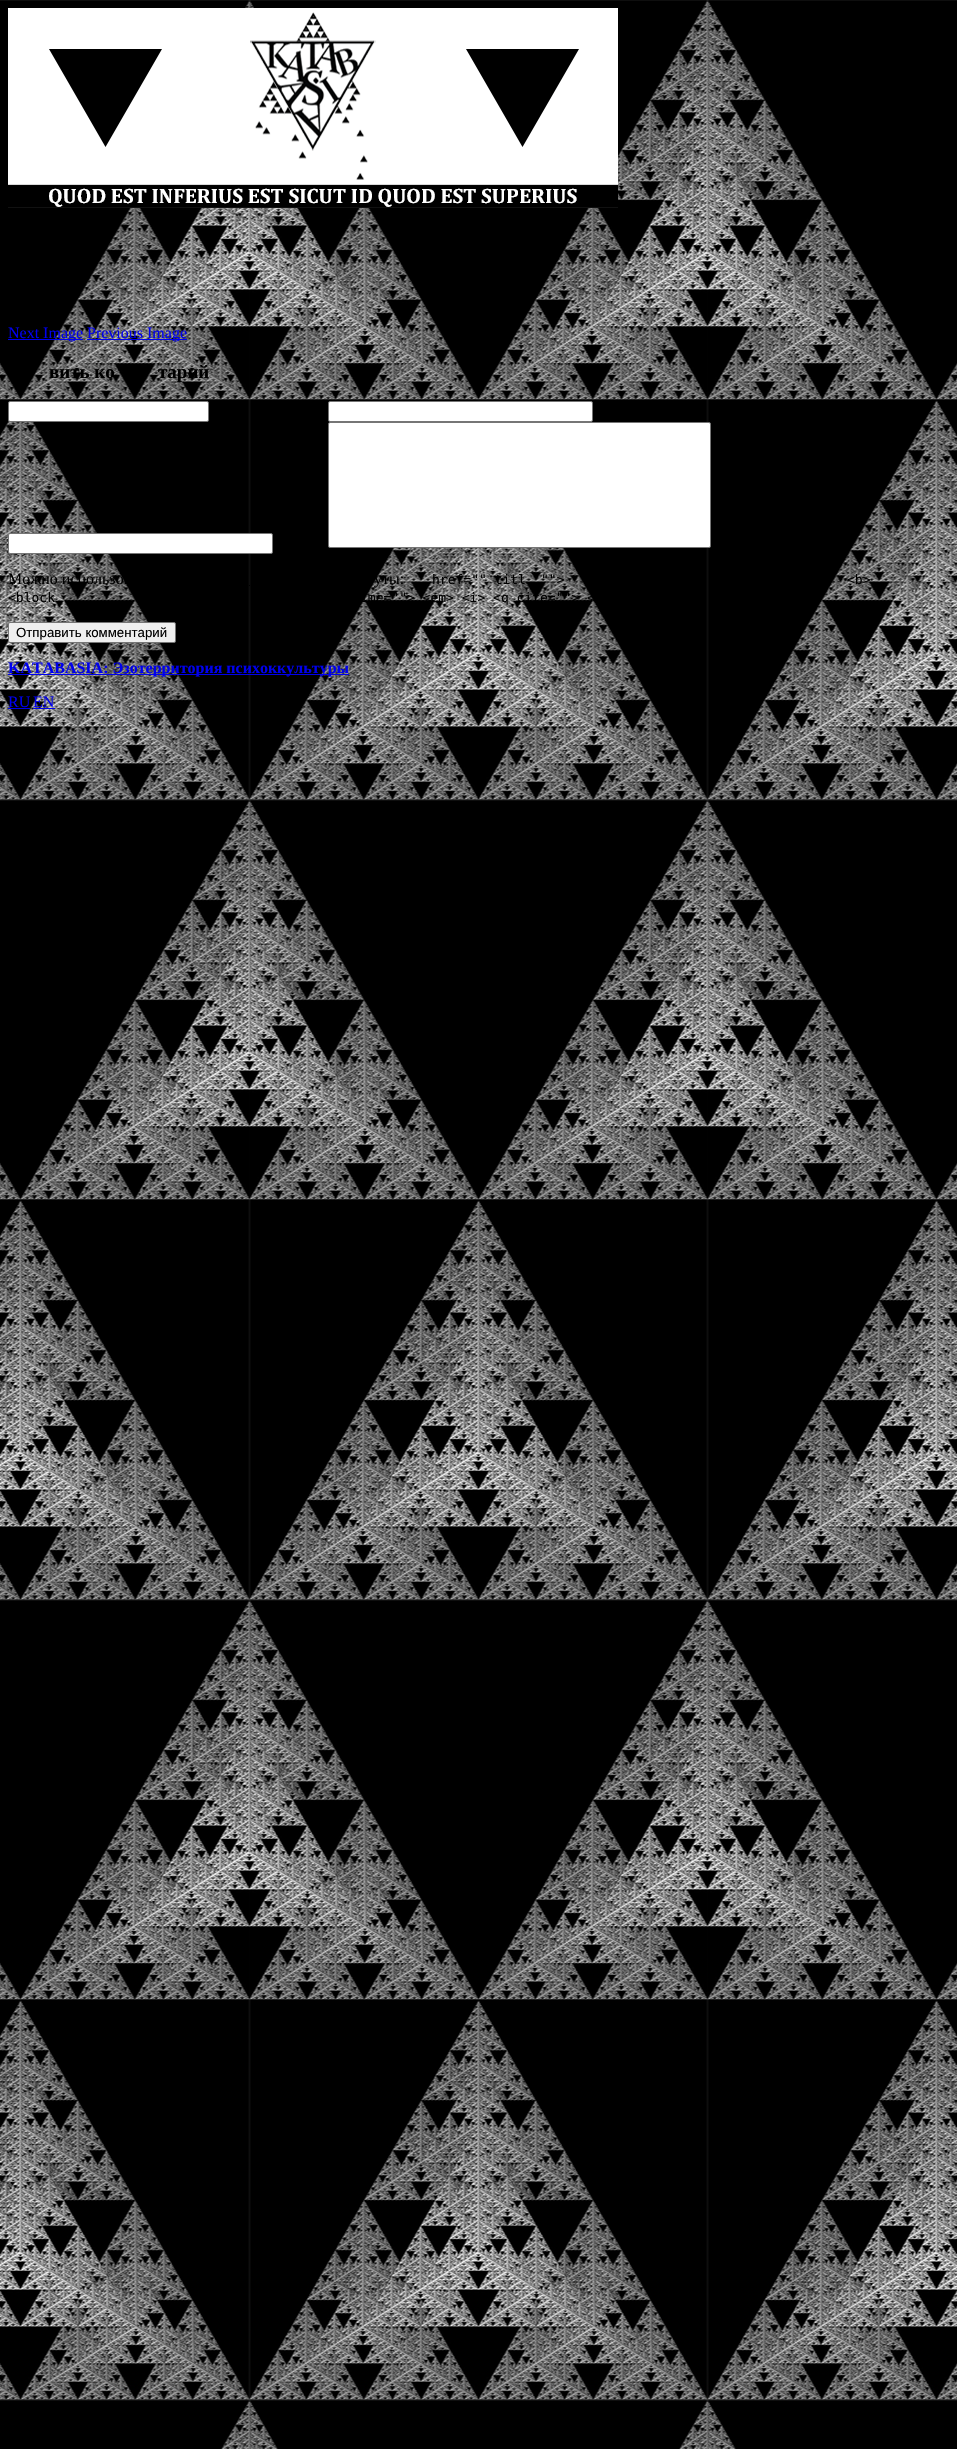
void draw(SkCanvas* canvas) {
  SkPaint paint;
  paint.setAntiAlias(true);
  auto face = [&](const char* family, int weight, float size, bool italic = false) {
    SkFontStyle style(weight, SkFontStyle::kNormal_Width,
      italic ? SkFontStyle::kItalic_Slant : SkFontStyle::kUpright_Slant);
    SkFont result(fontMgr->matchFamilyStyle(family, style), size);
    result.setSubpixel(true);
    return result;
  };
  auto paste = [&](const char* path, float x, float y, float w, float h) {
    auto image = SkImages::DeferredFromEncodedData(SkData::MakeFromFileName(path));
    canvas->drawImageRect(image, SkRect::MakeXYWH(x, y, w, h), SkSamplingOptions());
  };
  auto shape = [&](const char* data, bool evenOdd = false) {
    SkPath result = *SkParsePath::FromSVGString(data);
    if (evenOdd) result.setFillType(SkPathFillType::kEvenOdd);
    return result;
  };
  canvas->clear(0xffffffff);
  paste("img/1.png", 0, 0, 957, 2449);
  paint.setColor(0xffffffff);
  canvas->drawRect(SkRect::MakeXYWH(8, 8, 610, 4), paint);
  paste("img/2.png", 8, 12, 610, 196);
  paint.setColor(0xff0000ee);
  canvas->drawRect(SkRect::MakeXYWH(8, 339, 75, 1), paint);
  canvas->drawRect(SkRect::MakeXYWH(87, 339, 100, 1), paint);
  paint.setColor(0xffffffff);
  canvas->drawRoundRect(SkRect::MakeXYWH(8.5f, 401.5f, 200, 20), 1.5f, 1.5f, paint);
  paint.setStroke(true);
  paint.setStrokeWidth(1);
  paint.setColor(0xff767676);
  canvas->drawRoundRect(SkRect::MakeXYWH(8.5f, 401.5f, 200, 20), 1.5f, 1.5f, paint);
  paint.setStroke(false);
  paint.setColor(0xffffffff);
  canvas->drawRoundRect(SkRect::MakeXYWH(328.5f, 401.5f, 264, 20), 1.5f, 1.5f, paint);
  paint.setStroke(true);
  paint.setColor(0xff767676);
  canvas->drawRoundRect(SkRect::MakeXYWH(328.5f, 401.5f, 264, 20), 1.5f, 1.5f, paint);
  paint.setStroke(false);
  paint.setColor(0xffffffff);
  canvas->drawRoundRect(SkRect::MakeXYWH(8.5f, 533.5f, 264, 20), 1.5f, 1.5f, paint);
  paint.setStroke(true);
  paint.setColor(0xff767676);
  canvas->drawRoundRect(SkRect::MakeXYWH(8.5f, 533.5f, 264, 20), 1.5f, 1.5f, paint);
  paint.setStroke(false);
  paint.setColor(0xffffffff);
  canvas->drawRoundRect(SkRect::MakeXYWH(328.5f, 422.5f, 382, 125), 1.5f, 1.5f, paint);
  paint.setStroke(true);
  paint.setColor(0xff767676);
  canvas->drawRoundRect(SkRect::MakeXYWH(328.5f, 422.5f, 382, 125), 1.5f, 1.5f, paint);
  paint.setColor(0xff000000);
  paint.setPathEffect(SkDashPathEffect::Make({{1, 1}}, 0));
  canvas->drawPath(shape("M239 585.5H284"), paint);
  paint.setPathEffect(nullptr);
  paint.setStroke(false);
  paint.setColor(0xffefefef);
  canvas->drawRoundRect(SkRect::MakeXYWH(8.5f, 622.5f, 167, 20), 1.5f, 1.5f, paint);
  paint.setStroke(true);
  paint.setColor(0xff767676);
  canvas->drawRoundRect(SkRect::MakeXYWH(8.5f, 622.5f, 167, 20), 1.5f, 1.5f, paint);
  paint.setStroke(false);
  {
    const struct { float x, y, w, h; SkColor color; } items[] = {
      {8, 674, 341, 1, 0xff0000ee},
      {8, 708, 22, 1, 0xff0000ee},
      {33, 708, 22, 1, 0xff0000ee},
    };
    for (auto [x, y, w, h, color] : items) {
      paint.setColor(color);
      canvas->drawRect(SkRect::MakeXYWH(x, y, w, h), paint);
    }
  }
  auto f0 = face("Liberation Serif", 400, 16);
  canvas->drawString("Next Image", 8, 338, f0, paint);
  canvas->drawString("Previous Image", 87, 338, f0, paint);
  auto f1 = face("Liberation Serif", 700, 19);
  paint.setColor(0xff000000);
  canvas->drawString("вить ко", 49, 378, f1, paint);
  canvas->drawString("тарий", 158, 378, f1, paint);
  canvas->drawString("Можно использов", 8, 584, f0, paint);
  canvas->drawString("уты:", 374, 584, f0, paint);
  auto f2 = face("DejaVu Sans Mono", 400, 13);
  {
    const struct { const char* s; float x, y; } items[] = {
      {"href=\"\" titl", 432, 584},
      {"\"\">", 541, 584},
      {"<b>", 847, 584},
      {"<block", 8, 602},
      {"ime=\"\"> <em> <i> <q cite=\"\"> <", 360, 602},
    };
    for (auto [s, x, y] : items) {
      canvas->drawString(s, x, y, f2, paint);
    }
  }
  auto f3 = face("Liberation Sans", 400, 13.25f);
  canvas->drawString("Отправить комментарий", 16, 637, f3, paint);
  auto f4 = face("Liberation Serif", 700, 16);
  paint.setColor(0xff0000ee);
  canvas->drawString("KATABASIA: Эзотерритория психоккультуры", 8, 673, f4, paint);
  canvas->drawString("RU", 8, 707, f0, paint);
  canvas->drawString("EN", 33, 707, f0, paint);
}
